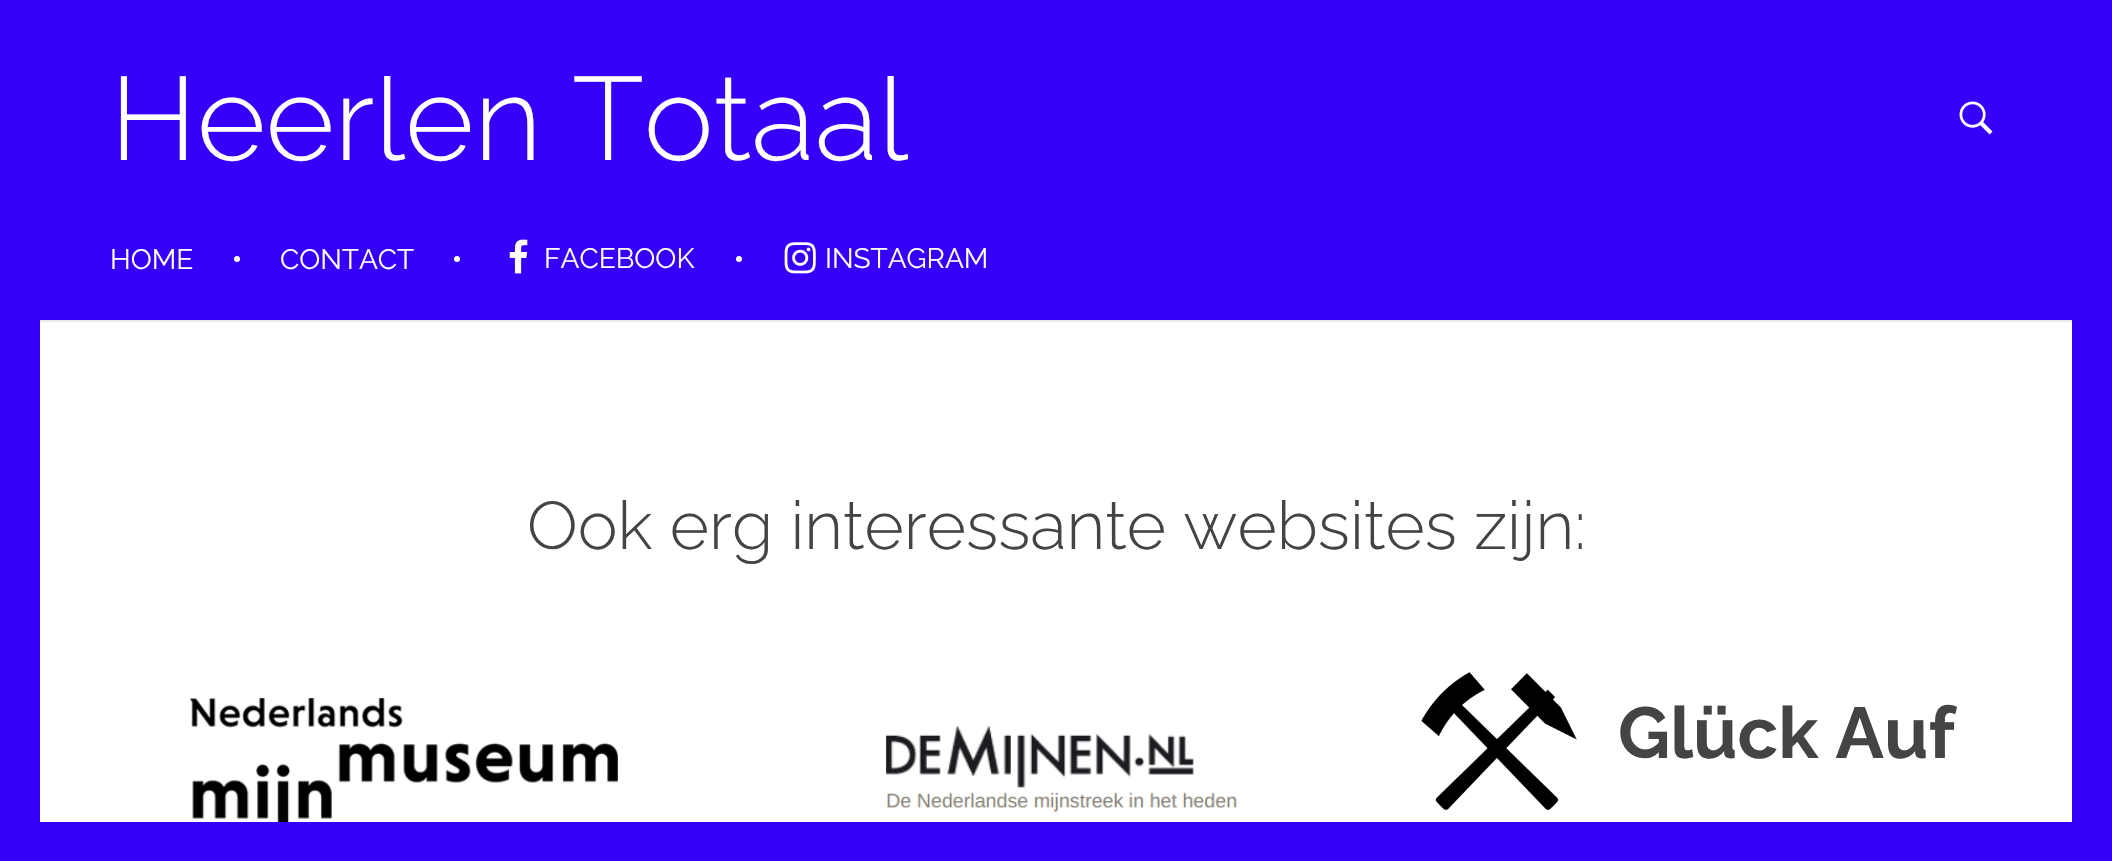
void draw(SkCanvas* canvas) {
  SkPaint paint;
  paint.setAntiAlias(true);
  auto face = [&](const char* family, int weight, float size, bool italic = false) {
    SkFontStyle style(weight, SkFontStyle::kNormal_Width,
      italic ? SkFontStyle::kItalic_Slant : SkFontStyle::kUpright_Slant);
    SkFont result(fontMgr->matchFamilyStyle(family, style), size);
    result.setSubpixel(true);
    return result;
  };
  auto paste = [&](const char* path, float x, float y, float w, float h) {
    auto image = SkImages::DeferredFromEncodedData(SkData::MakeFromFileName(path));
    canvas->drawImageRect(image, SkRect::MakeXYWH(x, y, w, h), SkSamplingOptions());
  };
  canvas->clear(0xffffffff);
  {
    const struct { float x, y, w, h; SkColor color; } items[] = {
      {0, 0, 40, 861, 0xff3600f8},
      {2072, 0, 40, 861, 0xff3600f8},
      {40, 0, 2032, 320, 0xff3600f8},
      {40, 320, 2032, 2, 0xffeaeaea},
    };
    for (auto [x, y, w, h, color] : items) {
      paint.setColor(color);
      canvas->drawRect(SkRect::MakeXYWH(x, y, w, h), paint);
    }
  }
  paste("img/1.png", 1959, 101, 34, 34);
  paint.setColor(0xffffffff);
  canvas->drawCircle(237, 259, 3, paint);
  canvas->drawCircle(457, 259, 3, paint);
  paste("img/2.png", 509, 239, 19, 35);
  canvas->drawCircle(739, 259, 3, paint);
  paste("img/3.png", 784, 242, 32, 32);
  paste("img/4.png", 190, 698, 428, 124);
  paste("img/5.png", 886, 726, 351, 86);
  paste("img/6.png", 1421, 672, 156, 138);
  paint.setColor(0xff3600f8);
  canvas->drawRect(SkRect::MakeXYWH(40, 822, 2032, 39), paint);
  canvas->save();
  canvas->clipRect(SkRect::MakeXYWH(110, 76, 798, 88));
  auto f0 = face("Raleway", 300, 118);
  paint.setColor(0xffffffff);
  canvas->drawString("Heerlen Totaal", 110, 160, f0, paint);
  canvas->restore();
  auto f1 = face("Raleway", 400, 28);
  {
    const struct { const char* s; float x, y; } items[] = {
      {"HOME", 110, 269},
      {"CONTACT", 280, 269},
      {"FACEBOOK", 544, 268},
      {"INSTAGRAM", 825, 268},
    };
    for (auto [s, x, y] : items) {
      canvas->drawString(s, x, y, f1, paint);
    }
  }
  auto f2 = face("Raleway", 300, 67.25f);
  paint.setColor(0xff444444);
  canvas->drawString("Ook erg interessante websites zijn:", 527, 549, f2, paint);
  auto f3 = face("Raleway", 700, 72);
  canvas->drawString("Glück Auf", 1618, 758, f3, paint);
}
